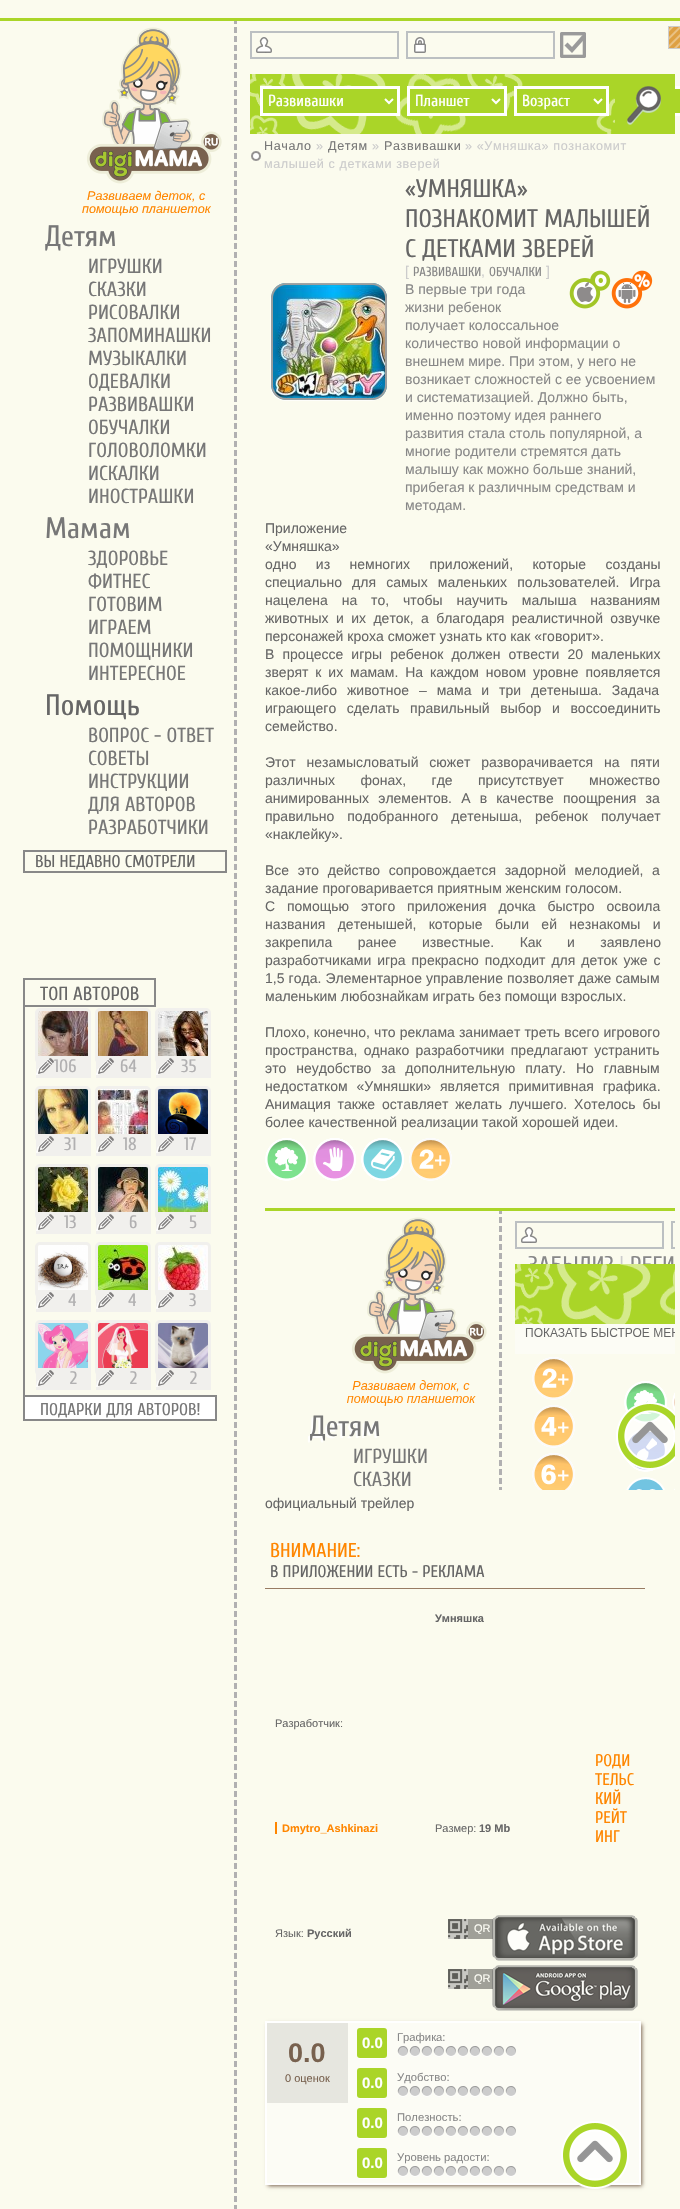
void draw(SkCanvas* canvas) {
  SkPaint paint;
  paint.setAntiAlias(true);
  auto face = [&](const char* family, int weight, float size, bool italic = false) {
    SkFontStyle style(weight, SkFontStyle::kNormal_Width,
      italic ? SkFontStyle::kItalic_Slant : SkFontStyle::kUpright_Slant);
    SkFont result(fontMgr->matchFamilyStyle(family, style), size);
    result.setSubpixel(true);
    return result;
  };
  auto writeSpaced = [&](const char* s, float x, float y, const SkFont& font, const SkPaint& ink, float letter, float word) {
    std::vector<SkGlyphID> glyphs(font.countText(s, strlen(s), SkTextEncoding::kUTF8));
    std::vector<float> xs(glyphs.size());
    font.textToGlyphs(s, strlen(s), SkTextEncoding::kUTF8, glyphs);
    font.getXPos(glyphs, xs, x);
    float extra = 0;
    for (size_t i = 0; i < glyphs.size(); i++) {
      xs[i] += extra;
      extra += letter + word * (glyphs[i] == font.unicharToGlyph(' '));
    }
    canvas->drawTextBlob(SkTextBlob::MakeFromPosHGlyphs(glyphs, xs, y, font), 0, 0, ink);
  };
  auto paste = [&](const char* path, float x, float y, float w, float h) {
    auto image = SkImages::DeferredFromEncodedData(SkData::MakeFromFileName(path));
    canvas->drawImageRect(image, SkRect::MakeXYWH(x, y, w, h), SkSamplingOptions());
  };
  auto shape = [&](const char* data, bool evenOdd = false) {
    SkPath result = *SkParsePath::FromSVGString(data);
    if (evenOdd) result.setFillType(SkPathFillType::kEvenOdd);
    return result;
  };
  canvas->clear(0xfffbfbee);
  paint.setColor(0xffaad528);
  canvas->drawRect(SkRect::MakeXYWH(0, 18, 680, 3), paint);
  paste("img/1.png", 234, 21, 3, 2188);
  paste("img/2.png", 87, 27, 135, 157);
  paint.setStroke(true);
  paint.setStrokeWidth(2);
  paint.setColor(0xff888888);
  canvas->drawRect(SkRect::MakeXYWH(24, 851, 202, 21), paint);
  canvas->drawRect(SkRect::MakeXYWH(24, 979, 131, 27), paint);
  paint.setStroke(false);
  canvas->drawRect(SkRect::MakeXYWH(23, 1005, 2, 390), paint);
  paint.setStroke(true);
  paint.setStrokeWidth(3);
  paint.setColor(0xfff1f0ed);
  canvas->drawRoundRect(SkRect::MakeXYWH(36.5f, 1009.5f, 53, 53), 3.5f, 3.5f, paint);
  paste("img/3.png", 38, 1011, 50, 45);
  paint.setStroke(false);
  canvas->drawRect(SkRect::MakeXYWH(36, 1056, 55, 22), paint);
  paste("img/4.png", 36, 1058, 18, 17);
  paint.setStroke(true);
  canvas->drawRoundRect(SkRect::MakeXYWH(96.5f, 1009.5f, 53, 53), 3.5f, 3.5f, paint);
  paste("img/5.png", 98, 1011, 50, 45);
  paint.setStroke(false);
  canvas->drawRect(SkRect::MakeXYWH(96, 1056, 55, 22), paint);
  paste("img/4.png", 96, 1058, 18, 17);
  paint.setStroke(true);
  canvas->drawRoundRect(SkRect::MakeXYWH(156.5f, 1009.5f, 53, 53), 3.5f, 3.5f, paint);
  paste("img/6.png", 158, 1011, 50, 45);
  paint.setStroke(false);
  canvas->drawRect(SkRect::MakeXYWH(156, 1056, 55, 22), paint);
  paste("img/4.png", 156, 1058, 18, 17);
  paint.setStroke(true);
  canvas->drawRoundRect(SkRect::MakeXYWH(36.5f, 1087.5f, 53, 53), 3.5f, 3.5f, paint);
  paste("img/7.png", 38, 1089, 50, 45);
  paint.setStroke(false);
  canvas->drawRect(SkRect::MakeXYWH(36, 1134, 55, 22), paint);
  paste("img/4.png", 36, 1136, 18, 17);
  paint.setStroke(true);
  canvas->drawRoundRect(SkRect::MakeXYWH(96.5f, 1087.5f, 53, 53), 3.5f, 3.5f, paint);
  paste("img/8.png", 98, 1089, 50, 45);
  paint.setStroke(false);
  canvas->drawRect(SkRect::MakeXYWH(96, 1134, 55, 22), paint);
  paste("img/4.png", 96, 1136, 18, 17);
  paint.setStroke(true);
  canvas->drawRoundRect(SkRect::MakeXYWH(156.5f, 1087.5f, 53, 53), 3.5f, 3.5f, paint);
  paste("img/9.png", 158, 1089, 50, 45);
  paint.setStroke(false);
  canvas->drawRect(SkRect::MakeXYWH(156, 1134, 55, 22), paint);
  paste("img/4.png", 156, 1136, 18, 17);
  paint.setStroke(true);
  canvas->drawRoundRect(SkRect::MakeXYWH(36.5f, 1165.5f, 53, 53), 3.5f, 3.5f, paint);
  paste("img/10.png", 38, 1167, 50, 45);
  paint.setStroke(false);
  canvas->drawRect(SkRect::MakeXYWH(36, 1212, 55, 22), paint);
  paste("img/4.png", 36, 1214, 18, 17);
  paint.setStroke(true);
  canvas->drawRoundRect(SkRect::MakeXYWH(96.5f, 1165.5f, 53, 53), 3.5f, 3.5f, paint);
  paste("img/11.png", 98, 1167, 50, 45);
  paint.setStroke(false);
  canvas->drawRect(SkRect::MakeXYWH(96, 1212, 55, 22), paint);
  paste("img/4.png", 96, 1214, 18, 17);
  paint.setStroke(true);
  canvas->drawRoundRect(SkRect::MakeXYWH(156.5f, 1165.5f, 53, 53), 3.5f, 3.5f, paint);
  paste("img/12.png", 158, 1167, 50, 45);
  paint.setStroke(false);
  canvas->drawRect(SkRect::MakeXYWH(156, 1212, 55, 22), paint);
  paste("img/4.png", 156, 1214, 18, 17);
  paint.setStroke(true);
  canvas->drawRoundRect(SkRect::MakeXYWH(36.5f, 1243.5f, 53, 53), 3.5f, 3.5f, paint);
  paste("img/13.png", 38, 1245, 50, 45);
  paint.setStroke(false);
  canvas->drawRect(SkRect::MakeXYWH(36, 1290, 55, 22), paint);
  paste("img/4.png", 36, 1292, 18, 17);
  paint.setStroke(true);
  canvas->drawRoundRect(SkRect::MakeXYWH(96.5f, 1243.5f, 53, 53), 3.5f, 3.5f, paint);
  paste("img/14.png", 98, 1245, 50, 45);
  paint.setStroke(false);
  canvas->drawRect(SkRect::MakeXYWH(96, 1290, 55, 22), paint);
  paste("img/4.png", 96, 1292, 18, 17);
  paint.setStroke(true);
  canvas->drawRoundRect(SkRect::MakeXYWH(156.5f, 1243.5f, 53, 53), 3.5f, 3.5f, paint);
  paste("img/15.png", 158, 1245, 50, 45);
  paint.setStroke(false);
  canvas->drawRect(SkRect::MakeXYWH(156, 1290, 55, 22), paint);
  paste("img/4.png", 156, 1292, 18, 17);
  paint.setStroke(true);
  canvas->drawRoundRect(SkRect::MakeXYWH(36.5f, 1321.5f, 53, 53), 3.5f, 3.5f, paint);
  paste("img/16.png", 38, 1323, 50, 45);
  paint.setStroke(false);
  canvas->drawRect(SkRect::MakeXYWH(36, 1368, 55, 22), paint);
  paste("img/4.png", 36, 1370, 18, 17);
  paint.setStroke(true);
  canvas->drawRoundRect(SkRect::MakeXYWH(96.5f, 1321.5f, 53, 53), 3.5f, 3.5f, paint);
  paste("img/17.png", 98, 1323, 50, 45);
  paint.setStroke(false);
  canvas->drawRect(SkRect::MakeXYWH(96, 1368, 55, 22), paint);
  paste("img/4.png", 96, 1370, 18, 17);
  paint.setStroke(true);
  canvas->drawRoundRect(SkRect::MakeXYWH(156.5f, 1321.5f, 53, 53), 3.5f, 3.5f, paint);
  paste("img/18.png", 158, 1323, 50, 45);
  paint.setStroke(false);
  canvas->drawRect(SkRect::MakeXYWH(156, 1368, 55, 22), paint);
  paste("img/4.png", 156, 1370, 18, 17);
  paint.setColor(0xffffffff);
  canvas->drawRect(SkRect::MakeXYWH(24, 1396, 192, 24), paint);
  paint.setStroke(true);
  paint.setStrokeWidth(2);
  paint.setColor(0xff888888);
  canvas->drawRect(SkRect::MakeXYWH(24, 1396, 192, 24), paint);
  paste("img/19.png", 256, 37, 16, 16);
  paint.setColor(0xffbcc0c2);
  canvas->drawRect(SkRect::MakeXYWH(251, 32, 147, 26), paint);
  paste("img/20.png", 414, 37, 12, 16);
  canvas->drawRect(SkRect::MakeXYWH(407, 32, 147, 26), paint);
  paste("img/21.png", 560, 32, 26, 26);
  paint.setStroke(false);
  paint.setColor(0xffaad528);
  canvas->drawRect(SkRect::MakeXYWH(250, 74, 365, 60), paint);
  paste("img/22.png", 250, 74, 365, 60);
  canvas->drawRect(SkRect::MakeXYWH(261.5f, 87.5f, 137, 27), paint);
  paint.setStroke(true);
  paint.setStrokeWidth(3);
  paint.setColor(0xffffffff);
  canvas->drawRect(SkRect::MakeXYWH(261.5f, 87.5f, 137, 27), paint);
  paint.setStrokeWidth(2);
  canvas->drawPath(shape("M385 99L389 103L393 99"), paint);
  paint.setStroke(false);
  paint.setColor(0xffaad528);
  canvas->drawRect(SkRect::MakeXYWH(408.5f, 87.5f, 97, 27), paint);
  paint.setStroke(true);
  paint.setStrokeWidth(3);
  paint.setColor(0xffffffff);
  canvas->drawRect(SkRect::MakeXYWH(408.5f, 87.5f, 97, 27), paint);
  paint.setStrokeWidth(2);
  canvas->drawPath(shape("M492 99L496 103L500 99"), paint);
  paint.setStroke(false);
  paint.setColor(0xffaad528);
  canvas->drawRect(SkRect::MakeXYWH(515.5f, 87.5f, 92, 27), paint);
  paint.setStroke(true);
  paint.setStrokeWidth(3);
  paint.setColor(0xffffffff);
  canvas->drawRect(SkRect::MakeXYWH(515.5f, 87.5f, 92, 27), paint);
  paint.setStrokeWidth(2);
  canvas->drawPath(shape("M594 99L598 103L602 99"), paint);
  paint.setStroke(false);
  paint.setColor(0xffaad528);
  canvas->drawRect(SkRect::MakeXYWH(675, 89, 5, 24), paint);
  paint.setStroke(true);
  paint.setStrokeWidth(3);
  paint.setColor(0xffffffff);
  canvas->drawRect(SkRect::MakeXYWH(617.5f, 87.5f, 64, 27), paint);
  paint.setStroke(false);
  paint.setColor(0xffaad528);
  canvas->drawRect(SkRect::MakeXYWH(615, 74, 60, 60), paint);
  paste("img/23.png", 627, 86, 34, 39);
  paste("img/24.png", 251, 151, 10, 10);
  paste("img/26.png", 271, 283, 116, 117);
  paste("img/25.png", 270, 282, 118, 119);
  paste("img/27.png", 569, 270, 42, 39);
  paste("img/28.png", 611, 270, 42, 39);
  paste("img/29.png", 265, 1138, 43, 43);
  paste("img/30.png", 313, 1138, 43, 43);
  paste("img/31.png", 361, 1138, 43, 43);
  paste("img/32.png", 409, 1138, 43, 43);
  paste("img/33.png", 265, 1208, 410, 282);
  paint.setColor(0xff987b63);
  canvas->drawRect(SkRect::MakeXYWH(265, 1588, 380, 1), paint);
  paste("img/34.png", 669, 27, 11, 21);
  paint.setStroke(true);
  paint.setStrokeWidth(1);
  paint.setColor(0xffcccccc);
  canvas->drawRect(SkRect::MakeXYWH(668.5f, 26.5f, 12, 22), paint);
  paint.setStroke(false);
  paint.setColor(0xffff8600);
  canvas->drawRect(SkRect::MakeXYWH(275, 1822, 2, 12), paint);
  paste("img/36.png", 492, 1915, 146, 46);
  paint.setColor(0x6b222222);
  canvas->drawRect(SkRect::MakeXYWH(448, 1919, 45, 20), paint);
  paste("img/35.png", 448, 1919, 20, 20);
  paste("img/37.png", 492, 1965, 146, 46);
  canvas->drawRect(SkRect::MakeXYWH(448, 1969, 45, 20), paint);
  paste("img/35.png", 448, 1969, 20, 20);
  paint.setColor(0xff78614e);
  paint.setMaskFilter(SkMaskFilter::MakeBlur(kNormal_SkBlurStyle, 2));
  canvas->drawRect(SkRect::MakeXYWH(268, 2024, 374, 162), paint);
  paint.setMaskFilter(nullptr);
  paint.setColor(0xfffcfcf5);
  canvas->drawRect(SkRect::MakeXYWH(266, 2022, 374, 162), paint);
  paint.setStroke(true);
  paint.setStrokeWidth(2);
  paint.setColor(0xffffffff);
  canvas->drawRect(SkRect::MakeXYWH(266, 2022, 374, 162), paint);
  paint.setStroke(false);
  paint.setColor(0xffe6e6df);
  canvas->drawRect(SkRect::MakeXYWH(267, 2023, 81, 80), paint);
  paint.setColor(0xffffffff);
  canvas->drawPath(shape("M357 2055C357 2059.5 360 2059 364 2059H380C384 2059 387 2059.5 387 2055C387 2056.5 385.5 2058 384 2058H360C358.5 2058 357 2056.5 357 2055Z"), paint);
  paint.setColor(0xffaad528);
  canvas->drawRoundRect(SkRect::MakeXYWH(357, 2028, 30, 30), 3, 3, paint);
  paint.setColor(0xffffffff);
  canvas->drawPath(shape("M398 2051.5C397.5 2058.5 408.5 2058.5 408 2051.5C407.5 2057.5 398.5 2057.5 398 2051.5Z"), paint);
  paint.setColor(0xffcccccc);
  canvas->drawCircle(403, 2051, 5, paint);
  paint.setColor(0x40000000);
  canvas->drawPath(shape("M403 2047C406.5 2047 408 2050.5 407.5 2053.5C408 2052 408 2050.5 407.5 2049C405 2042.5 395 2047.5 398.5 2053.5C398 2050.5 399.5 2047 403 2047Z"), paint);
  paint.setColor(0xffffffff);
  canvas->drawPath(shape("M410 2051.5C409.5 2058.5 420.5 2058.5 420 2051.5C419.5 2057.5 410.5 2057.5 410 2051.5Z"), paint);
  paint.setColor(0xffcccccc);
  canvas->drawCircle(415, 2051, 5, paint);
  paint.setColor(0x40000000);
  canvas->drawPath(shape("M415 2047C418.5 2047 420 2050.5 419.5 2053.5C420 2052 420 2050.5 419.5 2049C417 2042.5 407 2047.5 410.5 2053.5C410 2050.5 411.5 2047 415 2047Z"), paint);
  paint.setColor(0xffffffff);
  canvas->drawPath(shape("M422 2051.5C421.5 2058.5 432.5 2058.5 432 2051.5C431.5 2057.5 422.5 2057.5 422 2051.5Z"), paint);
  paint.setColor(0xffcccccc);
  canvas->drawCircle(427, 2051, 5, paint);
  paint.setColor(0x40000000);
  canvas->drawPath(shape("M427 2047C430.5 2047 432 2050.5 431.5 2053.5C432 2052 432 2050.5 431.5 2049C429 2042.5 419 2047.5 422.5 2053.5C422 2050.5 423.5 2047 427 2047Z"), paint);
  paint.setColor(0xffffffff);
  canvas->drawPath(shape("M434 2051.5C433.5 2058.5 444.5 2058.5 444 2051.5C443.5 2057.5 434.5 2057.5 434 2051.5Z"), paint);
  paint.setColor(0xffcccccc);
  canvas->drawCircle(439, 2051, 5, paint);
  paint.setColor(0x40000000);
  canvas->drawPath(shape("M439 2047C442.5 2047 444 2050.5 443.5 2053.5C444 2052 444 2050.5 443.5 2049C441 2042.5 431 2047.5 434.5 2053.5C434 2050.5 435.5 2047 439 2047Z"), paint);
  paint.setColor(0xffffffff);
  canvas->drawPath(shape("M446 2051.5C445.5 2058.5 456.5 2058.5 456 2051.5C455.5 2057.5 446.5 2057.5 446 2051.5Z"), paint);
  paint.setColor(0xffcccccc);
  canvas->drawCircle(451, 2051, 5, paint);
  paint.setColor(0x40000000);
  canvas->drawPath(shape("M451 2047C454.5 2047 456 2050.5 455.5 2053.5C456 2052 456 2050.5 455.5 2049C453 2042.5 443 2047.5 446.5 2053.5C446 2050.5 447.5 2047 451 2047Z"), paint);
  paint.setColor(0xffffffff);
  canvas->drawPath(shape("M458 2051.5C457.5 2058.5 468.5 2058.5 468 2051.5C467.5 2057.5 458.5 2057.5 458 2051.5Z"), paint);
  paint.setColor(0xffcccccc);
  canvas->drawCircle(463, 2051, 5, paint);
  paint.setColor(0x40000000);
  canvas->drawPath(shape("M463 2047C466.5 2047 468 2050.5 467.5 2053.5C468 2052 468 2050.5 467.5 2049C465 2042.5 455 2047.5 458.5 2053.5C458 2050.5 459.5 2047 463 2047Z"), paint);
  paint.setColor(0xffffffff);
  canvas->drawPath(shape("M470 2051.5C469.5 2058.5 480.5 2058.5 480 2051.5C479.5 2057.5 470.5 2057.5 470 2051.5Z"), paint);
  paint.setColor(0xffcccccc);
  canvas->drawCircle(475, 2051, 5, paint);
  paint.setColor(0x40000000);
  canvas->drawPath(shape("M475 2047C478.5 2047 480 2050.5 479.5 2053.5C480 2052 480 2050.5 479.5 2049C477 2042.5 467 2047.5 470.5 2053.5C470 2050.5 471.5 2047 475 2047Z"), paint);
  paint.setColor(0xffffffff);
  canvas->drawPath(shape("M482 2051.5C481.5 2058.5 492.5 2058.5 492 2051.5C491.5 2057.5 482.5 2057.5 482 2051.5Z"), paint);
  paint.setColor(0xffcccccc);
  canvas->drawCircle(487, 2051, 5, paint);
  paint.setColor(0x40000000);
  canvas->drawPath(shape("M487 2047C490.5 2047 492 2050.5 491.5 2053.5C492 2052 492 2050.5 491.5 2049C489 2042.5 479 2047.5 482.5 2053.5C482 2050.5 483.5 2047 487 2047Z"), paint);
  paint.setColor(0xffffffff);
  canvas->drawPath(shape("M494 2051.5C493.5 2058.5 504.5 2058.5 504 2051.5C503.5 2057.5 494.5 2057.5 494 2051.5Z"), paint);
  paint.setColor(0xffcccccc);
  canvas->drawCircle(499, 2051, 5, paint);
  paint.setColor(0x40000000);
  canvas->drawPath(shape("M499 2047C502.5 2047 504 2050.5 503.5 2053.5C504 2052 504 2050.5 503.5 2049C501 2042.5 491 2047.5 494.5 2053.5C494 2050.5 495.5 2047 499 2047Z"), paint);
  paint.setColor(0xffffffff);
  canvas->drawPath(shape("M506 2051.5C505.5 2058.5 516.5 2058.5 516 2051.5C515.5 2057.5 506.5 2057.5 506 2051.5Z"), paint);
  paint.setColor(0xffcccccc);
  canvas->drawCircle(511, 2051, 5, paint);
  paint.setColor(0x40000000);
  canvas->drawPath(shape("M511 2047C514.5 2047 516 2050.5 515.5 2053.5C516 2052 516 2050.5 515.5 2049C513 2042.5 503 2047.5 506.5 2053.5C506 2050.5 507.5 2047 511 2047Z"), paint);
  paint.setColor(0xffffffff);
  canvas->drawPath(shape("M357 2095C357 2099.5 360 2099 364 2099H380C384 2099 387 2099.5 387 2095C387 2096.5 385.5 2098 384 2098H360C358.5 2098 357 2096.5 357 2095Z"), paint);
  paint.setColor(0xffaad528);
  canvas->drawRoundRect(SkRect::MakeXYWH(357, 2068, 30, 30), 3, 3, paint);
  paint.setColor(0xffffffff);
  canvas->drawPath(shape("M398 2091.5C397.5 2098.5 408.5 2098.5 408 2091.5C407.5 2097.5 398.5 2097.5 398 2091.5Z"), paint);
  paint.setColor(0xffcccccc);
  canvas->drawCircle(403, 2091, 5, paint);
  paint.setColor(0x40000000);
  canvas->drawPath(shape("M403 2087C406.5 2087 408 2090.5 407.5 2093.5C408 2092 408 2090.5 407.5 2089C405 2082.5 395 2087.5 398.5 2093.5C398 2090.5 399.5 2087 403 2087Z"), paint);
  paint.setColor(0xffffffff);
  canvas->drawPath(shape("M410 2091.5C409.5 2098.5 420.5 2098.5 420 2091.5C419.5 2097.5 410.5 2097.5 410 2091.5Z"), paint);
  paint.setColor(0xffcccccc);
  canvas->drawCircle(415, 2091, 5, paint);
  paint.setColor(0x40000000);
  canvas->drawPath(shape("M415 2087C418.5 2087 420 2090.5 419.5 2093.5C420 2092 420 2090.5 419.5 2089C417 2082.5 407 2087.5 410.5 2093.5C410 2090.5 411.5 2087 415 2087Z"), paint);
  paint.setColor(0xffffffff);
  canvas->drawPath(shape("M422 2091.5C421.5 2098.5 432.5 2098.5 432 2091.5C431.5 2097.5 422.5 2097.5 422 2091.5Z"), paint);
  paint.setColor(0xffcccccc);
  canvas->drawCircle(427, 2091, 5, paint);
  paint.setColor(0x40000000);
  canvas->drawPath(shape("M427 2087C430.5 2087 432 2090.5 431.5 2093.5C432 2092 432 2090.5 431.5 2089C429 2082.5 419 2087.5 422.5 2093.5C422 2090.5 423.5 2087 427 2087Z"), paint);
  paint.setColor(0xffffffff);
  canvas->drawPath(shape("M434 2091.5C433.5 2098.5 444.5 2098.5 444 2091.5C443.5 2097.5 434.5 2097.5 434 2091.5Z"), paint);
  paint.setColor(0xffcccccc);
  canvas->drawCircle(439, 2091, 5, paint);
  paint.setColor(0x40000000);
  canvas->drawPath(shape("M439 2087C442.5 2087 444 2090.5 443.5 2093.5C444 2092 444 2090.5 443.5 2089C441 2082.5 431 2087.5 434.5 2093.5C434 2090.5 435.5 2087 439 2087Z"), paint);
  paint.setColor(0xffffffff);
  canvas->drawPath(shape("M446 2091.5C445.5 2098.5 456.5 2098.5 456 2091.5C455.5 2097.5 446.5 2097.5 446 2091.5Z"), paint);
  paint.setColor(0xffcccccc);
  canvas->drawCircle(451, 2091, 5, paint);
  paint.setColor(0x40000000);
  canvas->drawPath(shape("M451 2087C454.5 2087 456 2090.5 455.5 2093.5C456 2092 456 2090.5 455.5 2089C453 2082.5 443 2087.5 446.5 2093.5C446 2090.5 447.5 2087 451 2087Z"), paint);
  paint.setColor(0xffffffff);
  canvas->drawPath(shape("M458 2091.5C457.5 2098.5 468.5 2098.5 468 2091.5C467.5 2097.5 458.5 2097.5 458 2091.5Z"), paint);
  paint.setColor(0xffcccccc);
  canvas->drawCircle(463, 2091, 5, paint);
  paint.setColor(0x40000000);
  canvas->drawPath(shape("M463 2087C466.5 2087 468 2090.5 467.5 2093.5C468 2092 468 2090.5 467.5 2089C465 2082.5 455 2087.5 458.5 2093.5C458 2090.5 459.5 2087 463 2087Z"), paint);
  paint.setColor(0xffffffff);
  canvas->drawPath(shape("M470 2091.5C469.5 2098.5 480.5 2098.5 480 2091.5C479.5 2097.5 470.5 2097.5 470 2091.5Z"), paint);
  paint.setColor(0xffcccccc);
  canvas->drawCircle(475, 2091, 5, paint);
  paint.setColor(0x40000000);
  canvas->drawPath(shape("M475 2087C478.5 2087 480 2090.5 479.5 2093.5C480 2092 480 2090.5 479.5 2089C477 2082.5 467 2087.5 470.5 2093.5C470 2090.5 471.5 2087 475 2087Z"), paint);
  paint.setColor(0xffffffff);
  canvas->drawPath(shape("M482 2091.5C481.5 2098.5 492.5 2098.5 492 2091.5C491.5 2097.5 482.5 2097.5 482 2091.5Z"), paint);
  paint.setColor(0xffcccccc);
  canvas->drawCircle(487, 2091, 5, paint);
  paint.setColor(0x40000000);
  canvas->drawPath(shape("M487 2087C490.5 2087 492 2090.5 491.5 2093.5C492 2092 492 2090.5 491.5 2089C489 2082.5 479 2087.5 482.5 2093.5C482 2090.5 483.5 2087 487 2087Z"), paint);
  paint.setColor(0xffffffff);
  canvas->drawPath(shape("M494 2091.5C493.5 2098.5 504.5 2098.5 504 2091.5C503.5 2097.5 494.5 2097.5 494 2091.5Z"), paint);
  paint.setColor(0xffcccccc);
  canvas->drawCircle(499, 2091, 5, paint);
  paint.setColor(0x40000000);
  canvas->drawPath(shape("M499 2087C502.5 2087 504 2090.5 503.5 2093.5C504 2092 504 2090.5 503.5 2089C501 2082.5 491 2087.5 494.5 2093.5C494 2090.5 495.5 2087 499 2087Z"), paint);
  paint.setColor(0xffffffff);
  canvas->drawPath(shape("M506 2091.5C505.5 2098.5 516.5 2098.5 516 2091.5C515.5 2097.5 506.5 2097.5 506 2091.5Z"), paint);
  paint.setColor(0xffcccccc);
  canvas->drawCircle(511, 2091, 5, paint);
  paint.setColor(0x40000000);
  canvas->drawPath(shape("M511 2087C514.5 2087 516 2090.5 515.5 2093.5C516 2092 516 2090.5 515.5 2089C513 2082.5 503 2087.5 506.5 2093.5C506 2090.5 507.5 2087 511 2087Z"), paint);
  paint.setColor(0xffffffff);
  canvas->drawPath(shape("M357 2135C357 2139.5 360 2139 364 2139H380C384 2139 387 2139.5 387 2135C387 2136.5 385.5 2138 384 2138H360C358.5 2138 357 2136.5 357 2135Z"), paint);
  paint.setColor(0xffaad528);
  canvas->drawRoundRect(SkRect::MakeXYWH(357, 2108, 30, 30), 3, 3, paint);
  paint.setColor(0xffffffff);
  canvas->drawPath(shape("M398 2131.5C397.5 2138.5 408.5 2138.5 408 2131.5C407.5 2137.5 398.5 2137.5 398 2131.5Z"), paint);
  paint.setColor(0xffcccccc);
  canvas->drawCircle(403, 2131, 5, paint);
  paint.setColor(0x40000000);
  canvas->drawPath(shape("M403 2127C406.5 2127 408 2130.5 407.5 2133.5C408 2132 408 2130.5 407.5 2129C405 2122.5 395 2127.5 398.5 2133.5C398 2130.5 399.5 2127 403 2127Z"), paint);
  paint.setColor(0xffffffff);
  canvas->drawPath(shape("M410 2131.5C409.5 2138.5 420.5 2138.5 420 2131.5C419.5 2137.5 410.5 2137.5 410 2131.5Z"), paint);
  paint.setColor(0xffcccccc);
  canvas->drawCircle(415, 2131, 5, paint);
  paint.setColor(0x40000000);
  canvas->drawPath(shape("M415 2127C418.5 2127 420 2130.5 419.5 2133.5C420 2132 420 2130.5 419.5 2129C417 2122.5 407 2127.5 410.5 2133.5C410 2130.5 411.5 2127 415 2127Z"), paint);
  paint.setColor(0xffffffff);
  canvas->drawPath(shape("M422 2131.5C421.5 2138.5 432.5 2138.5 432 2131.5C431.5 2137.5 422.5 2137.5 422 2131.5Z"), paint);
  paint.setColor(0xffcccccc);
  canvas->drawCircle(427, 2131, 5, paint);
  paint.setColor(0x40000000);
  canvas->drawPath(shape("M427 2127C430.5 2127 432 2130.5 431.5 2133.5C432 2132 432 2130.5 431.5 2129C429 2122.5 419 2127.5 422.5 2133.5C422 2130.5 423.5 2127 427 2127Z"), paint);
  paint.setColor(0xffffffff);
  canvas->drawPath(shape("M434 2131.5C433.5 2138.5 444.5 2138.5 444 2131.5C443.5 2137.5 434.5 2137.5 434 2131.5Z"), paint);
  paint.setColor(0xffcccccc);
  canvas->drawCircle(439, 2131, 5, paint);
  paint.setColor(0x40000000);
  canvas->drawPath(shape("M439 2127C442.5 2127 444 2130.5 443.5 2133.5C444 2132 444 2130.5 443.5 2129C441 2122.5 431 2127.5 434.5 2133.5C434 2130.5 435.5 2127 439 2127Z"), paint);
  paint.setColor(0xffffffff);
  canvas->drawPath(shape("M446 2131.5C445.5 2138.5 456.5 2138.5 456 2131.5C455.5 2137.5 446.5 2137.5 446 2131.5Z"), paint);
  paint.setColor(0xffcccccc);
  canvas->drawCircle(451, 2131, 5, paint);
  paint.setColor(0x40000000);
  canvas->drawPath(shape("M451 2127C454.5 2127 456 2130.5 455.5 2133.5C456 2132 456 2130.5 455.5 2129C453 2122.5 443 2127.5 446.5 2133.5C446 2130.5 447.5 2127 451 2127Z"), paint);
  paint.setColor(0xffffffff);
  canvas->drawPath(shape("M458 2131.5C457.5 2138.5 468.5 2138.5 468 2131.5C467.5 2137.5 458.5 2137.5 458 2131.5Z"), paint);
  paint.setColor(0xffcccccc);
  canvas->drawCircle(463, 2131, 5, paint);
  paint.setColor(0x40000000);
  canvas->drawPath(shape("M463 2127C466.5 2127 468 2130.5 467.5 2133.5C468 2132 468 2130.5 467.5 2129C465 2122.5 455 2127.5 458.5 2133.5C458 2130.5 459.5 2127 463 2127Z"), paint);
  paint.setColor(0xffffffff);
  canvas->drawPath(shape("M470 2131.5C469.5 2138.5 480.5 2138.5 480 2131.5C479.5 2137.5 470.5 2137.5 470 2131.5Z"), paint);
  paint.setColor(0xffcccccc);
  canvas->drawCircle(475, 2131, 5, paint);
  paint.setColor(0x40000000);
  canvas->drawPath(shape("M475 2127C478.5 2127 480 2130.5 479.5 2133.5C480 2132 480 2130.5 479.5 2129C477 2122.5 467 2127.5 470.5 2133.5C470 2130.5 471.5 2127 475 2127Z"), paint);
  paint.setColor(0xffffffff);
  canvas->drawPath(shape("M482 2131.5C481.5 2138.5 492.5 2138.5 492 2131.5C491.5 2137.5 482.5 2137.5 482 2131.5Z"), paint);
  paint.setColor(0xffcccccc);
  canvas->drawCircle(487, 2131, 5, paint);
  paint.setColor(0x40000000);
  canvas->drawPath(shape("M487 2127C490.5 2127 492 2130.5 491.5 2133.5C492 2132 492 2130.5 491.5 2129C489 2122.5 479 2127.5 482.5 2133.5C482 2130.5 483.5 2127 487 2127Z"), paint);
  paint.setColor(0xffffffff);
  canvas->drawPath(shape("M494 2131.5C493.5 2138.5 504.5 2138.5 504 2131.5C503.5 2137.5 494.5 2137.5 494 2131.5Z"), paint);
  paint.setColor(0xffcccccc);
  canvas->drawCircle(499, 2131, 5, paint);
  paint.setColor(0x40000000);
  canvas->drawPath(shape("M499 2127C502.5 2127 504 2130.5 503.5 2133.5C504 2132 504 2130.5 503.5 2129C501 2122.5 491 2127.5 494.5 2133.5C494 2130.5 495.5 2127 499 2127Z"), paint);
  paint.setColor(0xffffffff);
  canvas->drawPath(shape("M506 2131.5C505.5 2138.5 516.5 2138.5 516 2131.5C515.5 2137.5 506.5 2137.5 506 2131.5Z"), paint);
  paint.setColor(0xffcccccc);
  canvas->drawCircle(511, 2131, 5, paint);
  paint.setColor(0x40000000);
  canvas->drawPath(shape("M511 2127C514.5 2127 516 2130.5 515.5 2133.5C516 2132 516 2130.5 515.5 2129C513 2122.5 503 2127.5 506.5 2133.5C506 2130.5 507.5 2127 511 2127Z"), paint);
  paint.setColor(0xffffffff);
  canvas->drawPath(shape("M357 2175C357 2179.5 360 2179 364 2179H380C384 2179 387 2179.5 387 2175C387 2176.5 385.5 2178 384 2178H360C358.5 2178 357 2176.5 357 2175Z"), paint);
  paint.setColor(0xffaad528);
  canvas->drawRoundRect(SkRect::MakeXYWH(357, 2148, 30, 30), 3, 3, paint);
  paint.setColor(0xffffffff);
  canvas->drawPath(shape("M398 2171.5C397.5 2178.5 408.5 2178.5 408 2171.5C407.5 2177.5 398.5 2177.5 398 2171.5Z"), paint);
  paint.setColor(0xffcccccc);
  canvas->drawCircle(403, 2171, 5, paint);
  paint.setColor(0x40000000);
  canvas->drawPath(shape("M403 2167C406.5 2167 408 2170.5 407.5 2173.5C408 2172 408 2170.5 407.5 2169C405 2162.5 395 2167.5 398.5 2173.5C398 2170.5 399.5 2167 403 2167Z"), paint);
  paint.setColor(0xffffffff);
  canvas->drawPath(shape("M410 2171.5C409.5 2178.5 420.5 2178.5 420 2171.5C419.5 2177.5 410.5 2177.5 410 2171.5Z"), paint);
  paint.setColor(0xffcccccc);
  canvas->drawCircle(415, 2171, 5, paint);
  paint.setColor(0x40000000);
  canvas->drawPath(shape("M415 2167C418.5 2167 420 2170.5 419.5 2173.5C420 2172 420 2170.5 419.5 2169C417 2162.5 407 2167.5 410.5 2173.5C410 2170.5 411.5 2167 415 2167Z"), paint);
  paint.setColor(0xffffffff);
  canvas->drawPath(shape("M422 2171.5C421.5 2178.5 432.5 2178.5 432 2171.5C431.5 2177.5 422.5 2177.5 422 2171.5Z"), paint);
  paint.setColor(0xffcccccc);
  canvas->drawCircle(427, 2171, 5, paint);
  paint.setColor(0x40000000);
  canvas->drawPath(shape("M427 2167C430.5 2167 432 2170.5 431.5 2173.5C432 2172 432 2170.5 431.5 2169C429 2162.5 419 2167.5 422.5 2173.5C422 2170.5 423.5 2167 427 2167Z"), paint);
  paint.setColor(0xffffffff);
  canvas->drawPath(shape("M434 2171.5C433.5 2178.5 444.5 2178.5 444 2171.5C443.5 2177.5 434.5 2177.5 434 2171.5Z"), paint);
  paint.setColor(0xffcccccc);
  canvas->drawCircle(439, 2171, 5, paint);
  paint.setColor(0x40000000);
  canvas->drawPath(shape("M439 2167C442.5 2167 444 2170.5 443.5 2173.5C444 2172 444 2170.5 443.5 2169C441 2162.5 431 2167.5 434.5 2173.5C434 2170.5 435.5 2167 439 2167Z"), paint);
  paint.setColor(0xffffffff);
  canvas->drawPath(shape("M446 2171.5C445.5 2178.5 456.5 2178.5 456 2171.5C455.5 2177.5 446.5 2177.5 446 2171.5Z"), paint);
  paint.setColor(0xffcccccc);
  canvas->drawCircle(451, 2171, 5, paint);
  paint.setColor(0x40000000);
  canvas->drawPath(shape("M451 2167C454.5 2167 456 2170.5 455.5 2173.5C456 2172 456 2170.5 455.5 2169C453 2162.5 443 2167.5 446.5 2173.5C446 2170.5 447.5 2167 451 2167Z"), paint);
  paint.setColor(0xffffffff);
  canvas->drawPath(shape("M458 2171.5C457.5 2178.5 468.5 2178.5 468 2171.5C467.5 2177.5 458.5 2177.5 458 2171.5Z"), paint);
  paint.setColor(0xffcccccc);
  canvas->drawCircle(463, 2171, 5, paint);
  paint.setColor(0x40000000);
  canvas->drawPath(shape("M463 2167C466.5 2167 468 2170.5 467.5 2173.5C468 2172 468 2170.5 467.5 2169C465 2162.5 455 2167.5 458.5 2173.5C458 2170.5 459.5 2167 463 2167Z"), paint);
  paint.setColor(0xffffffff);
  canvas->drawPath(shape("M470 2171.5C469.5 2178.5 480.5 2178.5 480 2171.5C479.5 2177.5 470.5 2177.5 470 2171.5Z"), paint);
  paint.setColor(0xffcccccc);
  canvas->drawCircle(475, 2171, 5, paint);
  paint.setColor(0x40000000);
  canvas->drawPath(shape("M475 2167C478.5 2167 480 2170.5 479.5 2173.5C480 2172 480 2170.5 479.5 2169C477 2162.5 467 2167.5 470.5 2173.5C470 2170.5 471.5 2167 475 2167Z"), paint);
  paint.setColor(0xffffffff);
  canvas->drawPath(shape("M482 2171.5C481.5 2178.5 492.5 2178.5 492 2171.5C491.5 2177.5 482.5 2177.5 482 2171.5Z"), paint);
  paint.setColor(0xffcccccc);
  canvas->drawCircle(487, 2171, 5, paint);
  paint.setColor(0x40000000);
  canvas->drawPath(shape("M487 2167C490.5 2167 492 2170.5 491.5 2173.5C492 2172 492 2170.5 491.5 2169C489 2162.5 479 2167.5 482.5 2173.5C482 2170.5 483.5 2167 487 2167Z"), paint);
  paint.setColor(0xffffffff);
  canvas->drawPath(shape("M494 2171.5C493.5 2178.5 504.5 2178.5 504 2171.5C503.5 2177.5 494.5 2177.5 494 2171.5Z"), paint);
  paint.setColor(0xffcccccc);
  canvas->drawCircle(499, 2171, 5, paint);
  paint.setColor(0x40000000);
  canvas->drawPath(shape("M499 2167C502.5 2167 504 2170.5 503.5 2173.5C504 2172 504 2170.5 503.5 2169C501 2162.5 491 2167.5 494.5 2173.5C494 2170.5 495.5 2167 499 2167Z"), paint);
  paint.setColor(0xffffffff);
  canvas->drawPath(shape("M506 2171.5C505.5 2178.5 516.5 2178.5 516 2171.5C515.5 2177.5 506.5 2177.5 506 2171.5Z"), paint);
  paint.setColor(0xffcccccc);
  canvas->drawCircle(511, 2171, 5, paint);
  paint.setColor(0x40000000);
  canvas->drawPath(shape("M511 2167C514.5 2167 516 2170.5 515.5 2173.5C516 2172 516 2170.5 515.5 2169C513 2162.5 503 2167.5 506.5 2173.5C506 2170.5 507.5 2167 511 2167Z"), paint);
  paste("img/38.png", 561, 2121, 68, 68);
  auto f0 = face("Liberation Sans", 400, 12.6f, true);
  paint.setColor(0xffff8600);
  canvas->drawString("Развиваем деток, с", 87, 200, f0, paint);
  canvas->drawString("помощью планшеток", 82, 213, f0, paint);
  auto f1 = face("Cuprum", 400, 29.5f);
  paint.setColor(0xff777777);
  canvas->drawString("Детям", 45, 246, f1, paint);
  auto f2 = face("Cuprum", 400, 20.25f);
  {
    const struct { const char* s; float x, y; } items[] = {
      {"ИГРУШКИ", 88, 273},
      {"СКАЗКИ", 88, 296},
      {"РИСОВАЛКИ", 88, 319},
      {"ЗАПОМИНАШКИ", 88, 342},
      {"МУЗЫКАЛКИ", 88, 365},
      {"ОДЕВАЛКИ", 88, 388},
      {"РАЗВИВАШКИ", 88, 411},
      {"ОБУЧАЛКИ", 88, 434},
      {"ГОЛОВОЛОМКИ", 88, 457},
      {"ИСКАЛКИ", 88, 480},
      {"ИНОСТРАШКИ", 88, 503},
    };
    for (auto [s, x, y] : items) {
      canvas->drawString(s, x, y, f2, paint);
    }
  }
  canvas->drawString("Мамам", 45, 538, f1, paint);
  {
    const struct { const char* s; float x, y; } items[] = {
      {"ЗДОРОВЬЕ", 88, 565},
      {"ФИТНЕС", 88, 588},
      {"ГОТОВИМ", 88, 611},
      {"ИГРАЕМ", 88, 634},
      {"ПОМОЩНИКИ", 88, 657},
      {"ИНТЕРЕСНОЕ", 88, 680},
    };
    for (auto [s, x, y] : items) {
      canvas->drawString(s, x, y, f2, paint);
    }
  }
  paint.setColor(0xff666666);
  canvas->drawString("Помощь", 45, 715, f1, paint);
  paint.setColor(0xff777777);
  {
    const struct { const char* s; float x, y; } items[] = {
      {"ВОПРОС - ОТВЕТ", 88, 742},
      {"СОВЕТЫ", 88, 765},
      {"ИНСТРУКЦИИ", 88, 788},
      {"ДЛЯ АВТОРОВ", 88, 811},
      {"РАЗРАБОТЧИКИ", 88, 834},
    };
    for (auto [s, x, y] : items) {
      canvas->drawString(s, x, y, f2, paint);
    }
  }
  auto f3 = face("Cuprum", 400, 17);
  paint.setColor(0xff666666);
  canvas->drawString("ВЫ НЕДАВНО СМОТРЕЛИ", 35, 867, f3, paint);
  auto f4 = face("Cuprum", 400, 19);
  canvas->drawString("ТОП АВТОРОВ", 40, 1000, f4, paint);
  auto f5 = face("Cuprum", 400, 18);
  paint.setColor(0xffb1b0b1);
  {
    const struct { const char* s; float x, y; } items[] = {
      {"106", 54, 1072},
      {"64", 120, 1072},
      {"35", 181, 1072},
      {"31", 64, 1150},
      {"18", 123, 1150},
      {"17", 184, 1150},
      {"13", 64, 1228},
      {"6", 129, 1228},
      {"5", 189, 1228},
      {"4", 68, 1306},
      {"4", 128, 1306},
      {"3", 189, 1306},
      {"2", 70, 1384},
      {"2", 130, 1384},
      {"2", 190, 1384},
    };
    for (auto [s, x, y] : items) {
      canvas->drawString(s, x, y, f5, paint);
    }
  }
  paint.setColor(0xff777777);
  canvas->drawString("ПОДАРКИ ДЛЯ АВТОРОВ!", 40, 1415, f3, paint);
  auto f6 = face("Cuprum", 400, 16);
  paint.setColor(0xffffffff);
  {
    const struct { const char* s; float x, y; } items[] = {
      {"Развивашки", 268, 106},
      {"Планшет", 415, 106},
      {"Возраст", 522, 106},
    };
    for (auto [s, x, y] : items) {
      canvas->drawString(s, x, y, f6, paint);
    }
  }
  auto f7 = face("Liberation Sans", 400, 12.6f);
  paint.setColor(0xff777777);
  writeSpaced("Начало", 264, 150, f7, paint, 0.6f, 0);
  paint.setColor(0xffcccccc);
  writeSpaced("»", 316, 150, f7, paint, 0.6f, 0);
  paint.setColor(0xff777777);
  writeSpaced("Детям", 328, 150, f7, paint, 0.6f, 0);
  paint.setColor(0xffcccccc);
  writeSpaced("»", 372, 150, f7, paint, 0.6f, 0);
  paint.setColor(0xff777777);
  writeSpaced("Развивашки", 384, 150, f7, paint, 0.6f, 0);
  paint.setColor(0xffcccccc);
  writeSpaced("» «Умняшка» познакомит", 465, 150, f7, paint, 0.6f, 0);
  writeSpaced("малышей с детками зверей", 264, 168, f7, paint, 0.6f, 0);
  auto f8 = face("Cuprum", 400, 25.25f);
  paint.setColor(0xff666666);
  {
    const struct { const char* s; float x, y; } items[] = {
      {"«УМНЯШКА»", 405, 197},
      {"ПОЗНАКОМИТ МАЛЫШЕЙ", 405, 227},
      {"С ДЕТКАМИ ЗВЕРЕЙ", 405, 257},
    };
    for (auto [s, x, y] : items) {
      canvas->drawString(s, x, y, f8, paint);
    }
  }
  auto f9 = face("Liberation Sans", 400, 14);
  paint.setColor(0xffcccccc);
  canvas->drawString("[", 405, 276, f9, paint);
  auto f10 = face("Cuprum", 400, 13);
  paint.setColor(0xff888888);
  canvas->drawString("РАЗВИВАШКИ", 413, 276, f10, paint);
  paint.setColor(0xffcccccc);
  canvas->drawString(",", 481, 276, f9, paint);
  paint.setColor(0xff888888);
  canvas->drawString("ОБУЧАЛКИ", 489, 276, f10, paint);
  paint.setColor(0xffcccccc);
  canvas->drawString("]", 546, 276, f9, paint);
  paint.setColor(0xff888888);
  {
    const struct { const char* s; float x, y; } items[] = {
      {"В первые три года", 405, 294},
      {"жизни ребенок", 405, 312},
      {"получает колоссальное", 405, 330},
      {"количество новой информации о", 405, 348},
      {"внешнем мире. При этом, у него не", 405, 366},
      {"возникает сложностей с ее усвоением", 405, 384},
      {"и систематизацией. Должно быть,", 405, 402},
      {"именно поэтому идея раннего", 405, 420},
      {"развития стала столь популярной, а", 405, 438},
      {"многие родители стремятся дать", 405, 456},
      {"малышу как можно больше знаний,", 405, 474},
      {"прибегая к различным средствам и", 405, 492},
      {"методам.", 405, 510},
    };
    for (auto [s, x, y] : items) {
      canvas->drawString(s, x, y, f9, paint);
    }
  }
  paint.setColor(0xff666666);
  canvas->drawString("Приложение", 265, 533, f9, paint);
  canvas->drawString("«Умняшка»", 265, 551, f9, paint);
  writeSpaced("одно из немногих приложений, которые созданы", 265, 569, f9, paint, 0, 15.5f);
  writeSpaced("специально для самых маленьких пользователей. Игра", 265, 587, f9, paint, 0, 6.25f);
  writeSpaced("нацелена на то, чтобы научить малыша названиям", 265, 605, f9, paint, 0, 10);
  writeSpaced("животных и их деток, а благодаря реалистичной озвучке", 265, 623, f9, paint, 0, 3.5f);
  canvas->drawString("персонажей кроха сможет узнать кто как «говорит».", 265, 641, f9, paint);
  writeSpaced("В процессе игры ребенок должен отвести 20 маленьких", 265, 659, f9, paint, 0, 4.25f);
  writeSpaced("зверят к их мамам. На каждом новом уровне появляется", 265, 677, f9, paint, 0, 3);
  writeSpaced("какое-либо животное – мама и три детеныша. Задача", 265, 695, f9, paint, 0, 6);
  writeSpaced("играющего сделать правильный выбор и воссоединить", 265, 713, f9, paint, 0, 6.75f);
  canvas->drawString("семейство.", 265, 731, f9, paint);
  writeSpaced("Этот незамысловатый сюжет разворачивается на пяти", 265, 767, f9, paint, 0, 7);
  writeSpaced("различных фонах, где присутствует множество", 265, 785, f9, paint, 0, 21.5f);
  writeSpaced("анимированных элементов. А в качестве поощрения за", 265, 803, f9, paint, 0, 5.25f);
  writeSpaced("правильно подобранного детеныша, ребенок получает", 265, 821, f9, paint, 0, 9);
  canvas->drawString("«наклейку».", 265, 839, f9, paint);
  writeSpaced("Все это действо сопровождается задорной мелодией, а", 265, 875, f9, paint, 0, 4.75f);
  canvas->drawString("задание проговаривается приятным женским голосом.", 265, 893, f9, paint);
  writeSpaced("С помощью этого приложения дочка быстро освоила", 265, 911, f9, paint, 0, 8);
  writeSpaced("названия детенышей, которые были ей незнакомы и", 265, 929, f9, paint, 0, 8.5f);
  writeSpaced("закрепила ранее известные. Как и заявлено", 265, 947, f9, paint, 0, 21.5f);
  writeSpaced("разработчиками игра прекрасно подходит для деток уже с", 265, 965, f9, paint, 0, 2);
  writeSpaced("1,5 года. Элементарное управление позволяет даже самым", 265, 983, f9, paint, 0, 0.25f);
  canvas->drawString("маленьким любознайкам играть без помощи взрослых.", 265, 1001, f9, paint);
  writeSpaced("Плохо, конечно, что реклама занимает треть всего игрового", 265, 1037, f9, paint, 0, 0.25f);
  writeSpaced("пространства, однако разработчики предлагают устранить", 265, 1055, f9, paint, 0, 2.5f);
  writeSpaced("это неудобство за дополнительную плату. Но главным", 265, 1073, f9, paint, 0, 6);
  writeSpaced("недостатком «Умняшки» является примитивная графика.", 265, 1091, f9, paint, 0, 5);
  writeSpaced("Анимация также оставляет желать лучшего. Хотелось бы", 265, 1109, f9, paint, 0, 3);
  canvas->drawString("более качественной реализации такой хорошей идеи.", 265, 1127, f9, paint);
  canvas->drawString("официальный трейлер", 265, 1508, f9, paint);
  auto f11 = face("Cuprum", 400, 20);
  paint.setColor(0xffff8600);
  canvas->drawString("ВНИМАНИЕ:", 270, 1557, f11, paint);
  auto f12 = face("Cuprum", 400, 16.75f);
  paint.setColor(0xff666666);
  canvas->drawString("В ПРИЛОЖЕНИИ ЕСТЬ - РЕКЛАМА", 270, 1577, f12, paint);
  auto f13 = face("Liberation Sans", 700, 11);
  canvas->drawString("Умняшка", 435, 1622, f13, paint);
  auto f14 = face("Liberation Sans", 400, 11);
  canvas->drawString("Разработчик:", 275, 1727, f14, paint);
  paint.setColor(0xffff8600);
  canvas->drawString("Dmytro_Ashkinazi", 282, 1832, f13, paint);
  paint.setColor(0xff666666);
  canvas->drawString("Размер:", 435, 1832, f14, paint);
  canvas->drawString("19 Mb", 479, 1832, f13, paint);
  canvas->drawString("Язык:", 275, 1937, f14, paint);
  canvas->drawString("Русский", 307, 1937, f13, paint);
  paint.setColor(0xfffdfdf5);
  canvas->drawString("QR", 474, 1932, f14, paint);
  canvas->drawString("QR", 474, 1982, f14, paint);
  paint.setColor(0xffff8600);
  {
    const struct { const char* s; float x, y; } items[] = {
      {"РОДИ", 595, 1766},
      {"ТЕЛЬС", 595, 1785},
      {"КИЙ", 595, 1804},
      {"РЕЙТ", 595, 1823},
      {"ИНГ", 595, 1842},
    };
    for (auto [s, x, y] : items) {
      canvas->drawString(s, x, y, f12, paint);
    }
  }
  auto f15 = face("Liberation Sans", 700, 27);
  paint.setColor(0xff78614e);
  canvas->drawString("0.0", 288, 2062, f15, paint);
  canvas->drawString("0 оценок", 285, 2082, f14, paint);
  auto f16 = face("Liberation Sans", 700, 15);
  paint.setColor(0xffffffff);
  canvas->drawString("0.0", 362, 2048, f16, paint);
  auto f17 = face("Liberation Sans", 400, 11.25f);
  paint.setColor(0xff888888);
  canvas->drawString("Графика:", 397, 2041, f17, paint);
  paint.setColor(0xffffffff);
  canvas->drawString("0.0", 362, 2088, f16, paint);
  paint.setColor(0xff888888);
  canvas->drawString("Удобство:", 397, 2081, f17, paint);
  paint.setColor(0xffffffff);
  canvas->drawString("0.0", 362, 2128, f16, paint);
  paint.setColor(0xff888888);
  canvas->drawString("Полезность:", 397, 2121, f17, paint);
  paint.setColor(0xffffffff);
  canvas->drawString("0.0", 362, 2168, f16, paint);
  paint.setColor(0xff888888);
  canvas->drawString("Уровень радости:", 397, 2161, f17, paint);
}
